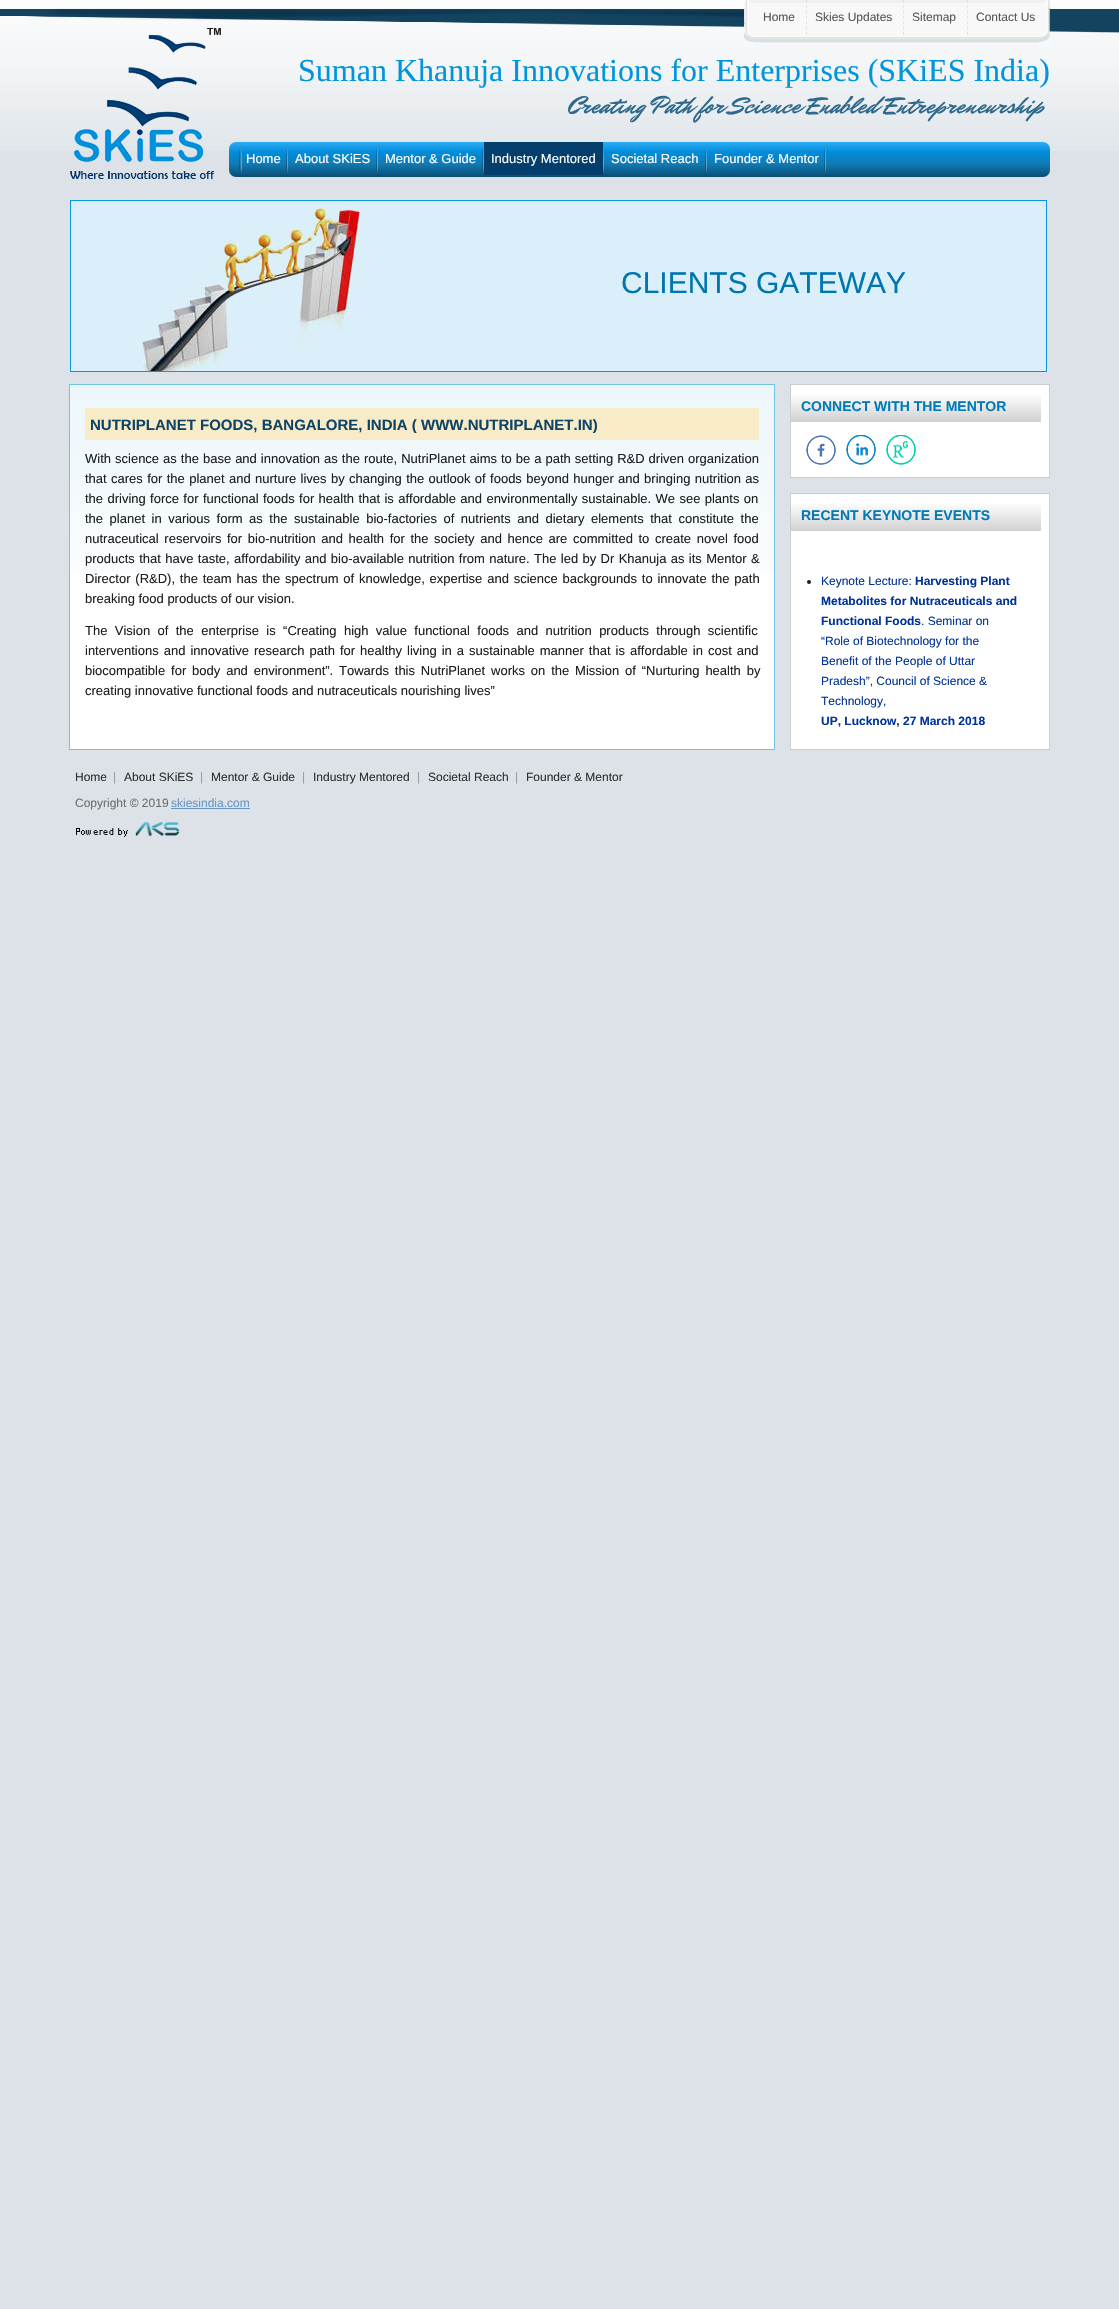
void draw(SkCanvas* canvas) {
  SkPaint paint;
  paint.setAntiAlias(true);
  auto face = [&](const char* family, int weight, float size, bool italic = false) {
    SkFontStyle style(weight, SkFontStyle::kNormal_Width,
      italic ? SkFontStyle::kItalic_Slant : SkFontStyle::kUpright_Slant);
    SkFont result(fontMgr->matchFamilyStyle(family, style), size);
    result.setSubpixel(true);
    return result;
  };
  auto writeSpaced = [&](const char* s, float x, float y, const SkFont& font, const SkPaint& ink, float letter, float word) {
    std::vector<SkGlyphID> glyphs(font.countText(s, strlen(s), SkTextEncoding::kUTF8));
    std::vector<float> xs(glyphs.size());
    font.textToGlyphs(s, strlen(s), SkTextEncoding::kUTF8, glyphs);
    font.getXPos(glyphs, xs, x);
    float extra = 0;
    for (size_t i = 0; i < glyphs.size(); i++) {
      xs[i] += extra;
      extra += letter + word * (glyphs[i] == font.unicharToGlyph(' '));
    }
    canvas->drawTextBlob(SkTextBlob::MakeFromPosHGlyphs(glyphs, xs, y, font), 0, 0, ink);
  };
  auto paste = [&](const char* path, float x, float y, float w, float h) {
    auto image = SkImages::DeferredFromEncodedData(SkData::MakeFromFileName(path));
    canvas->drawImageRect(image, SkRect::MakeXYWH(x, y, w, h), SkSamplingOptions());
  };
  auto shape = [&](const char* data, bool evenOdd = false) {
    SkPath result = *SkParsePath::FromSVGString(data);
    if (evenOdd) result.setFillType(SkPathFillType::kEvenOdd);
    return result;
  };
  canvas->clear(0xffdce2e7);
  paste("img/1.png", 0, 52, 1119, 99);
  paste("img/2.png", 0, 0, 1119, 52);
  paste("img/3.png", 755, 0, 284, 43);
  paint.setColor(0xfff2fafd);
  canvas->drawRect(SkRect::MakeXYWH(744, 42, 11, 6), paint);
  paste("img/4.png", 744, 0, 11, 42);
  paint.setStroke(true);
  paint.setStrokeWidth(1);
  paint.setColor(0xffe3e3e3);
  paint.setPathEffect(SkDashPathEffect::Make({{3, 2.33f}}, 0));
  canvas->drawPath(shape("M806.5 0V35"), paint);
  paint.setPathEffect(nullptr);
  paint.setPathEffect(SkDashPathEffect::Make({{3, 2.33f}}, 0));
  canvas->drawPath(shape("M903.5 0V35"), paint);
  paint.setPathEffect(nullptr);
  paint.setPathEffect(SkDashPathEffect::Make({{3, 2.33f}}, 0));
  canvas->drawPath(shape("M967.5 0V35"), paint);
  paint.setPathEffect(nullptr);
  paint.setStroke(false);
  paint.setColor(0xfff2fafd);
  canvas->drawRect(SkRect::MakeXYWH(1039, 42, 11, 6), paint);
  paste("img/5.png", 1039, 0, 11, 42);
  paste("img/6.png", 70, 28, 151, 151);
  {
    const SkColor colors[] = {0xff2dabf2, 0xff008ddc, 0xff127cb6, 0xff094d74};
    const float stops[] = {0.01f, 0.29f, 0.61f, 1};
    const SkPoint ends[] = {{640, 142}, {640, 177}};
    paint.setShader(SkGradientShader::MakeLinear(ends, colors, stops, 4, SkTileMode::kClamp));
    paint.setAlpha(255);
  }
  canvas->drawRoundRect(SkRect::MakeXYWH(229, 142, 821, 35), 7, 7, paint);
  paste("img/7.png", 239, 147, 49, 27);
  paste("img/8.png", 376, 147, 2, 27);
  paste("img/8.png", 482, 147, 2, 27);
  paste("img/9.png", 603, 147, 1, 27);
  paint.setShader(nullptr);
  paint.setColor(0xff043e6c);
  canvas->drawRect(SkRect::MakeXYWH(484, 142, 119, 33), paint);
  paste("img/8.png", 705, 147, 2, 27);
  paste("img/8.png", 824, 147, 2, 27);
  paint.setColor(0xffdaeffa);
  canvas->drawRect(SkRect::MakeXYWH(71, 201, 975, 170), paint);
  paste("img/10.png", 141, 206, 223, 165);
  paint.setStroke(true);
  paint.setColor(0xff0897de);
  canvas->drawRect(SkRect::MakeXYWH(70.5f, 200.5f, 976, 171), paint);
  paint.setStroke(false);
  paint.setColor(0xffffffff);
  canvas->drawRect(SkRect::MakeXYWH(70, 572, 704, 177), paint);
  paste("img/11.png", 70, 385, 704, 187);
  paint.setStroke(true);
  paint.setColor(0xff6fc4e3);
  canvas->drawRect(SkRect::MakeXYWH(69.5f, 384.5f, 705, 365), paint);
  paint.setStroke(false);
  paint.setColor(0xfff8ecc8);
  canvas->drawRect(SkRect::MakeXYWH(85, 408, 674, 32), paint);
  paint.setColor(0xffffffff);
  canvas->drawRect(SkRect::MakeXYWH(790.5f, 384.5f, 259, 93), paint);
  paint.setStroke(true);
  paint.setColor(0xffcdcdcd);
  canvas->drawRect(SkRect::MakeXYWH(790.5f, 384.5f, 259, 93), paint);
  paint.setStroke(false);
  {
    const SkColor colors[] = {0xffffffff, 0xffd1d1d1};
    const float stops[] = {0, 1};
    const SkPoint ends[] = {{916, 393}, {916, 422}};
    paint.setShader(SkGradientShader::MakeLinear(ends, colors, stops, 2, SkTileMode::kClamp));
    paint.setAlpha(255);
  }
  canvas->drawRect(SkRect::MakeXYWH(791, 395, 250, 27), paint);
  paste("img/12.png", 806, 435, 30, 30);
  paste("img/13.png", 846, 435, 30, 30);
  paste("img/14.png", 886, 435, 30, 30);
  paint.setShader(nullptr);
  paint.setColor(0xffffffff);
  canvas->drawRect(SkRect::MakeXYWH(790.5f, 493.5f, 259, 256), paint);
  paint.setStroke(true);
  paint.setColor(0xffcdcdcd);
  canvas->drawRect(SkRect::MakeXYWH(790.5f, 493.5f, 259, 256), paint);
  paint.setStroke(false);
  {
    const SkColor colors[] = {0xffffffff, 0xffd1d1d1};
    const float stops[] = {0, 1};
    const SkPoint ends[] = {{916, 502}, {916, 531}};
    paint.setShader(SkGradientShader::MakeLinear(ends, colors, stops, 2, SkTileMode::kClamp));
    paint.setAlpha(255);
  }
  canvas->drawRect(SkRect::MakeXYWH(791, 504, 250, 27), paint);
  paint.setShader(nullptr);
  paint.setColor(0xff1e1e1e);
  canvas->drawCircle(809, 582, 2, paint);
  paint.setColor(0xff6796c3);
  canvas->drawRect(SkRect::MakeXYWH(171, 808, 79, 1), paint);
  paste("img/15.png", 76, 822, 104, 15);
  auto f0 = face("Liberation Sans", 400, 12);
  paint.setColor(0xff565656);
  {
    const struct { const char* s; float x, y; } items[] = {
      {"Home", 763, 21},
      {"Skies Updates", 815, 21},
      {"Sitemap", 912, 21},
      {"Contact Us", 976, 21},
    };
    for (auto [s, x, y] : items) {
      canvas->drawString(s, x, y, f0, paint);
    }
  }
  auto f1 = face("Liberation Serif", 400, 32);
  paint.setColor(0xff0094dd);
  canvas->drawString("Suman Khanuja Innovations for Enterprises (SKiES India)", 298, 81, f1, paint);
  auto f2 = face("Mr Dafoe", 400, 25);
  paint.setColor(0xff2e698d);
  canvas->drawString("Creating Path for Science Enabled Entrepreneurship", 568, 113, f2, paint);
  auto f3 = face("Liberation Sans", 400, 13);
  paint.setColor(0xffffffff);
  {
    const struct { const char* s; float x, y; } items[] = {
      {"Home", 246, 163},
      {"About SKiES", 295, 163},
      {"Mentor & Guide", 385, 163},
      {"Industry Mentored", 491, 163},
      {"Societal Reach", 611, 163},
      {"Founder & Mentor", 714, 163},
    };
    for (auto [s, x, y] : items) {
      canvas->drawString(s, x, y, f3, paint);
    }
  }
  auto f4 = face("Liberation Sans", 400, 30);
  paint.setColor(0xff0076b0);
  canvas->drawString("CLIENTS GATEWAY", 621, 293, f4, paint);
  auto f5 = face("Liberation Sans", 700, 15);
  paint.setColor(0xff104466);
  canvas->drawString("NUTRIPLANET FOODS, BANGALORE, INDIA (", 90, 430, f5, paint);
  canvas->drawString("WWW.NUTRIPLANET.IN)", 421, 430, f5, paint);
  paint.setColor(0xff1e1e1e);
  writeSpaced("With science as the base and innovation as the route, NutriPlanet aims to be a path setting R&D driven organization", 85, 463, f3, paint, 0, 0.4f);
  writeSpaced("that cares for the planet and nurture lives by changing the outlook of foods beyond hunger and bringing nutrition as", 85, 483, f3, paint, 0, 0.75f);
  writeSpaced("the driving force for functional foods for health that is affordable and environmentally sustainable. We see plants on", 85, 503, f3, paint, 0, 0.75f);
  writeSpaced("the planet in various form as the sustainable bio-factories of nutrients and dietary elements that constitute the", 85, 523, f3, paint, 0, 2.9f);
  writeSpaced("nutraceutical reservoirs for bio-nutrition and health for the society and hence are committed to create novel food", 85, 543, f3, paint, 0, 2);
  writeSpaced("products that have taste, affordability and bio-available nutrition from nature. The led by Dr Khanuja as its Mentor &", 85, 563, f3, paint, 0, 0.75f);
  writeSpaced("Director (R&D), the team has the spectrum of knowledge, expertise and science backgrounds to innovate the path", 85, 583, f3, paint, 0, 1.2f);
  canvas->drawString("breaking food products of our vision.", 85, 603, f3, paint);
  writeSpaced("The Vision of the enterprise is “Creating high value functional foods and nutrition products through scientific", 85, 635, f3, paint, 0, 3.75f);
  writeSpaced("interventions and innovative research path for healthy living in a sustainable manner that is affordable in cost and", 85, 655, f3, paint, 0, 1.4f);
  writeSpaced("biocompatible for body and environment”. Towards this NutriPlanet works on the Mission of “Nurturing health by", 85, 675, f3, paint, 0, 2.25f);
  canvas->drawString("creating innovative functional foods and nutraceuticals nourishing lives”", 85, 695, f3, paint);
  auto f6 = face("Liberation Sans", 700, 14);
  paint.setColor(0xff017bb8);
  canvas->drawString("CONNECT WITH THE MENTOR", 801, 411, f6, paint);
  canvas->drawString("RECENT KEYNOTE EVENTS", 801, 520, f6, paint);
  paint.setColor(0xff003399);
  canvas->drawString("Keynote Lecture:", 821, 585, f0, paint);
  auto f7 = face("Liberation Sans", 700, 12);
  {
    const struct { const char* s; float x, y; } items[] = {
      {"Harvesting Plant", 915, 585},
      {"Metabolites for Nutraceuticals and", 821, 605},
      {"Functional Foods", 821, 625},
    };
    for (auto [s, x, y] : items) {
      canvas->drawString(s, x, y, f7, paint);
    }
  }
  {
    const struct { const char* s; float x, y; } items[] = {
      {". Seminar on", 921, 625},
      {"“Role of Biotechnology for the", 821, 645},
      {"Benefit of the People of Uttar", 821, 665},
      {"Pradesh”, Council of Science &", 821, 685},
      {"Technology,", 821, 705},
    };
    for (auto [s, x, y] : items) {
      canvas->drawString(s, x, y, f0, paint);
    }
  }
  canvas->drawString("UP, Lucknow, 27 March 2018", 821, 725, f7, paint);
  paint.setColor(0xff303030);
  canvas->drawString("Home", 75, 781, f0, paint);
  paint.setColor(0xff999999);
  canvas->drawString("|", 113, 781, f0, paint);
  paint.setColor(0xff303030);
  canvas->drawString("About SKiES", 124, 781, f0, paint);
  paint.setColor(0xff999999);
  canvas->drawString("|", 200, 781, f0, paint);
  paint.setColor(0xff303030);
  canvas->drawString("Mentor & Guide", 211, 781, f0, paint);
  paint.setColor(0xff999999);
  canvas->drawString("|", 302, 781, f0, paint);
  paint.setColor(0xff303030);
  canvas->drawString("Industry Mentored", 313, 781, f0, paint);
  paint.setColor(0xff999999);
  canvas->drawString("|", 417, 781, f0, paint);
  paint.setColor(0xff303030);
  canvas->drawString("Societal Reach", 428, 781, f0, paint);
  paint.setColor(0xff999999);
  canvas->drawString("|", 515, 781, f0, paint);
  paint.setColor(0xff303030);
  canvas->drawString("Founder & Mentor", 526, 781, f0, paint);
  paint.setColor(0xff6e6e6e);
  canvas->drawString("Copyright © 2019", 75, 807, f0, paint);
  paint.setColor(0xff6796c3);
  canvas->drawString("skiesindia.com", 171, 807, f0, paint);
}
